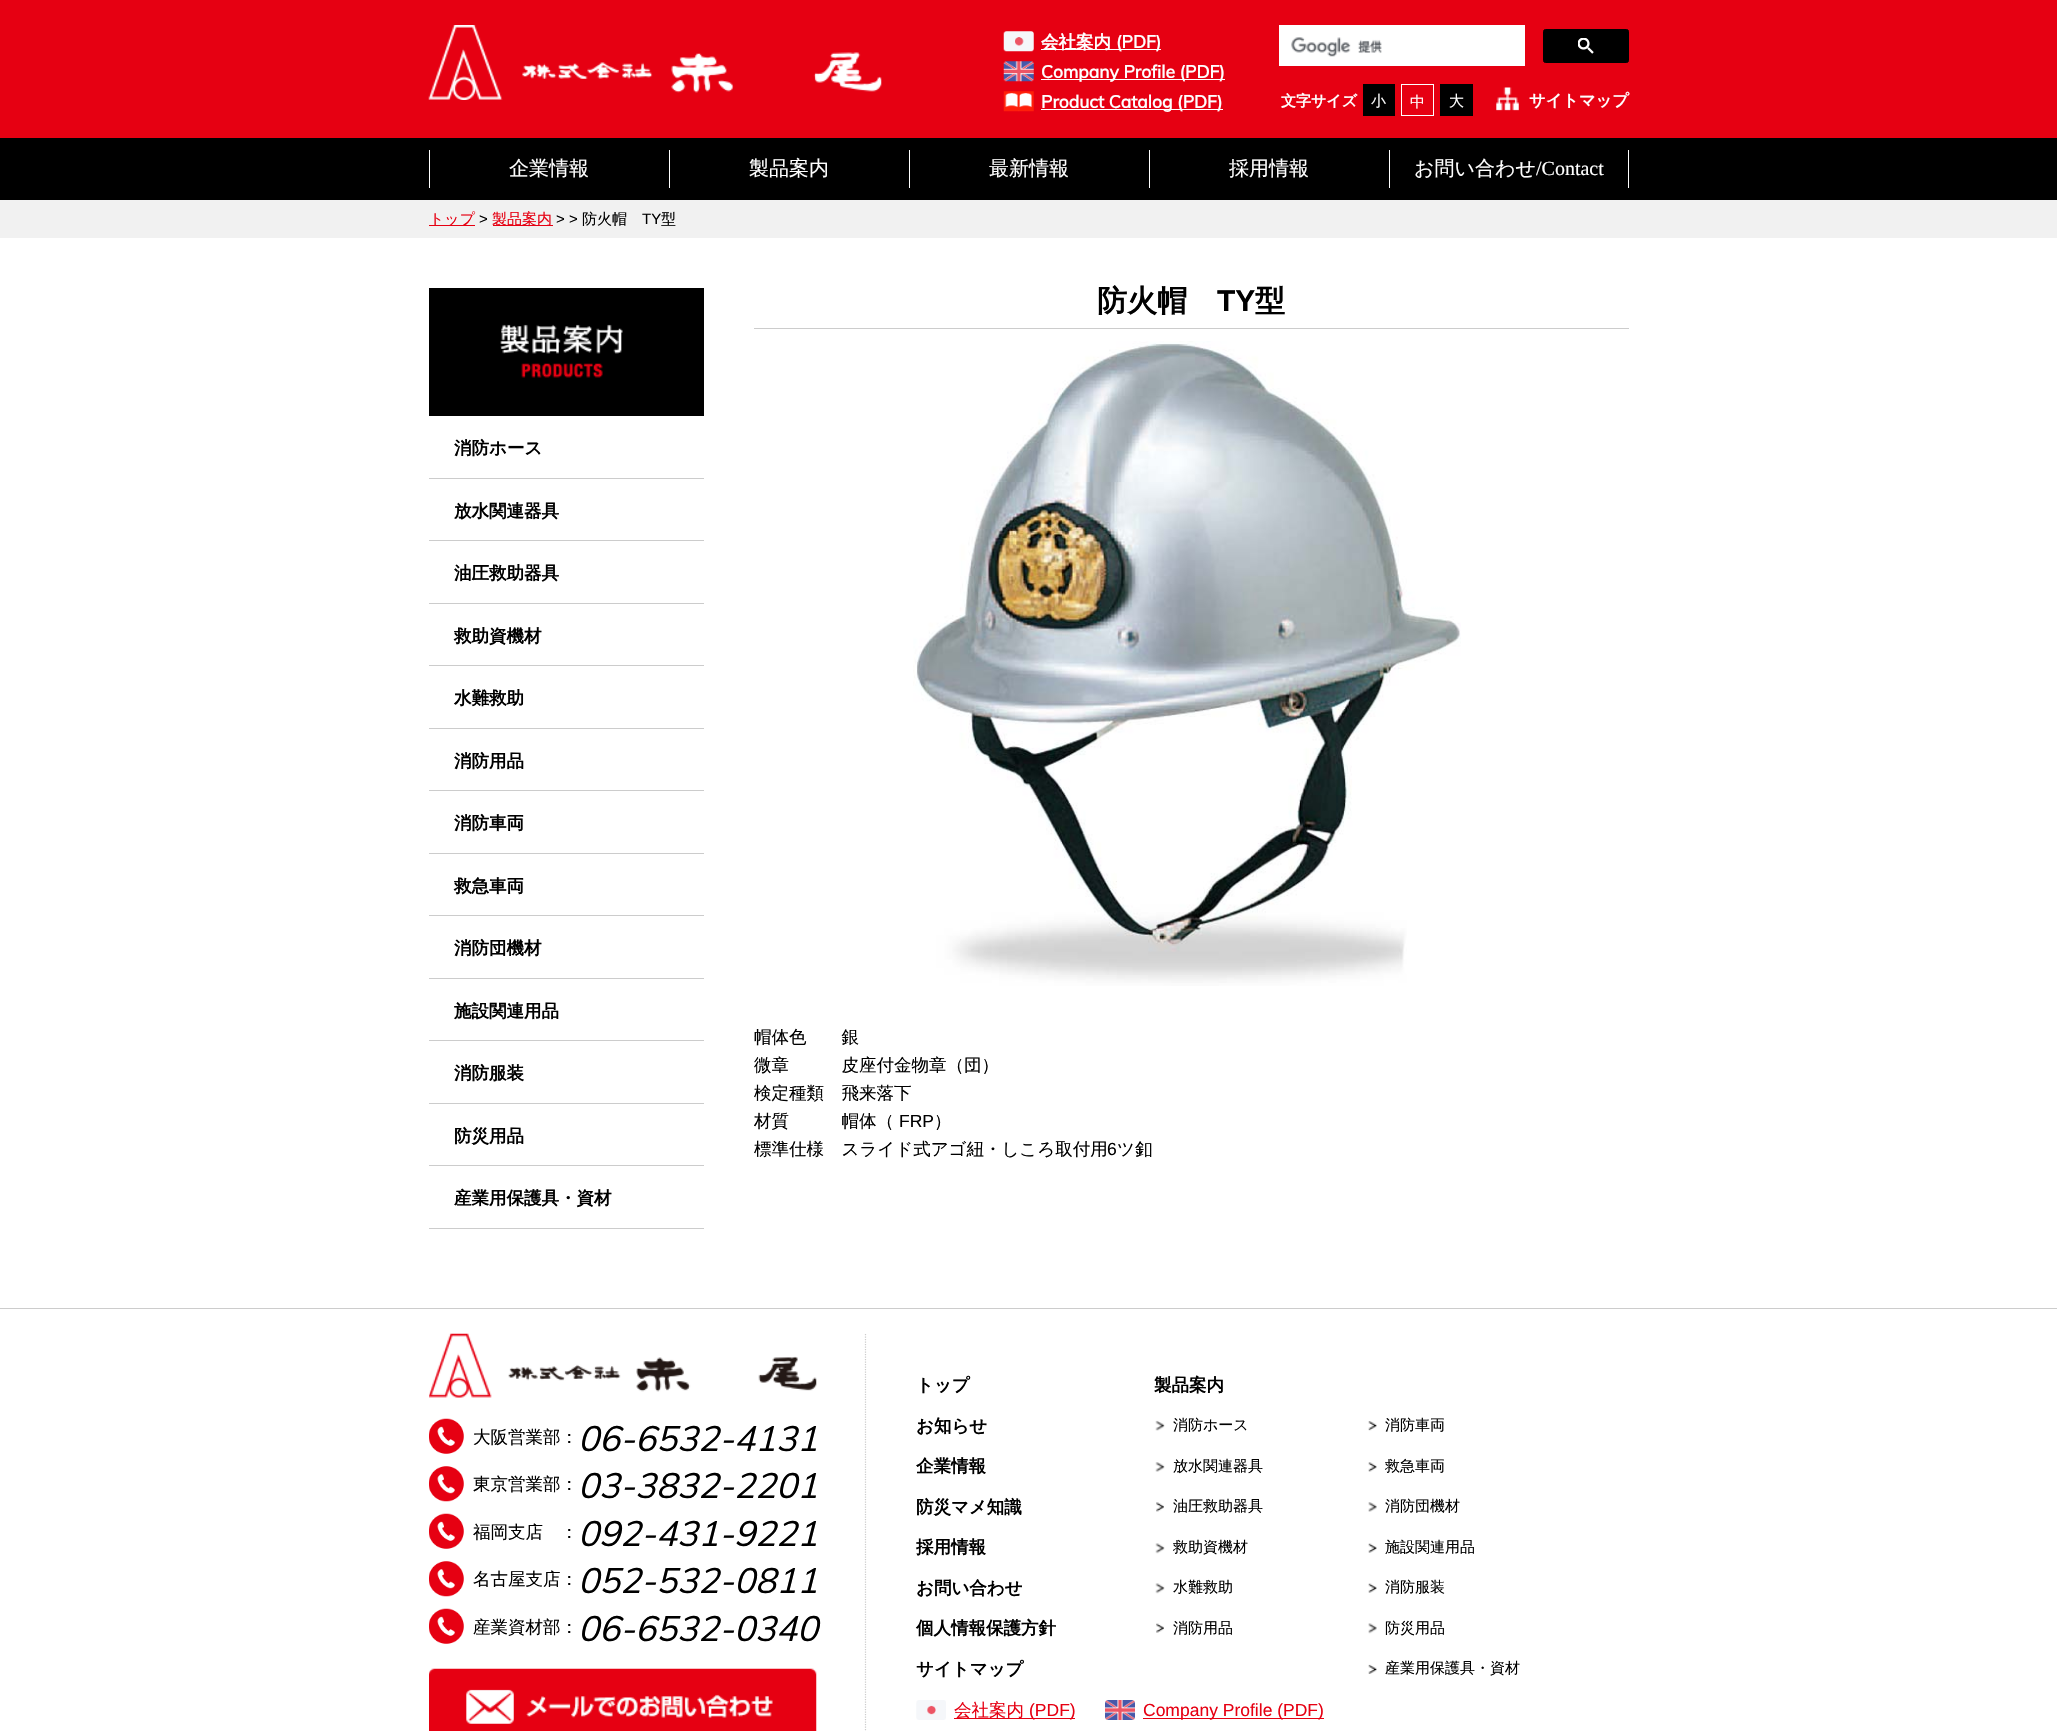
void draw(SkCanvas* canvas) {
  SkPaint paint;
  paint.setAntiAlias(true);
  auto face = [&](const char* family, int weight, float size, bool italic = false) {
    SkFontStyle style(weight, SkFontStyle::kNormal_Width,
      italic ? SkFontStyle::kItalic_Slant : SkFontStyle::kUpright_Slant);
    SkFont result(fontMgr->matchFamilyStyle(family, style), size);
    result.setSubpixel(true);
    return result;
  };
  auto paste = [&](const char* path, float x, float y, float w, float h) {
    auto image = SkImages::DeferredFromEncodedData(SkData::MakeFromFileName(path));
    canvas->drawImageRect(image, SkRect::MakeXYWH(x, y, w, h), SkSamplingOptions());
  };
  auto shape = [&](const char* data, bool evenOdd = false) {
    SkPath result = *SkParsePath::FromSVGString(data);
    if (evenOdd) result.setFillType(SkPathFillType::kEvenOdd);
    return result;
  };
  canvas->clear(0xffffffff);
  paint.setColor(0xffe60012);
  canvas->drawRect(SkRect::MakeXYWH(0, 0, 2057, 138), paint);
  paste("img/1.png", 428, 25, 454, 75);
  paste("img/2.png", 1003, 31, 31, 21);
  paint.setColor(0xffffffff);
  canvas->drawRect(SkRect::MakeXYWH(1041, 49, 120, 1), paint);
  paste("img/3.png", 1003, 61, 31, 21);
  canvas->drawRect(SkRect::MakeXYWH(1041, 79, 184, 1), paint);
  paste("img/4.png", 1003, 91, 31, 21);
  canvas->drawRect(SkRect::MakeXYWH(1041, 109, 182, 1), paint);
  canvas->drawRect(SkRect::MakeXYWH(1279, 25, 246, 41), paint);
  paste("img/5.png", 1291, 37, 91, 20);
  paint.setColor(0xff000000);
  canvas->drawRoundRect(SkRect::MakeXYWH(1543.5f, 29.5f, 85, 33), 2, 2, paint);
  paint.setStroke(true);
  paint.setStrokeWidth(1);
  canvas->drawRoundRect(SkRect::MakeXYWH(1543.5f, 29.5f, 85, 33), 2, 2, paint);
  paste("img/6.png", 1578, 38, 16, 16);
  paint.setStroke(false);
  canvas->drawRect(SkRect::MakeXYWH(1363, 84, 32, 32), paint);
  paint.setStroke(true);
  paint.setColor(0xffffffff);
  canvas->drawRect(SkRect::MakeXYWH(1401.5f, 84.5f, 32, 31), paint);
  paint.setStroke(false);
  paint.setColor(0xff000000);
  canvas->drawRect(SkRect::MakeXYWH(1440, 84, 33, 32), paint);
  paste("img/7.png", 1496, 87, 23, 24);
  {
    const struct { float x, y, w, h; SkColor color; } items[] = {
      {0, 138, 2057, 62, 0xff000000},
      {429, 150, 1, 38, 0xffffffff},
      {669, 150, 1, 38, 0xffffffff},
      {909, 150, 1, 38, 0xffffffff},
      {1149, 150, 1, 38, 0xffffffff},
      {1628, 150, 1, 38, 0xffffffff},
      {1389, 150, 1, 38, 0xffffffff},
      {0, 200, 2057, 38, 0xfff1f1f1},
      {429, 225, 46, 1, 0xffe60012},
      {493, 225, 60, 1, 0xffe60012},
      {429, 288, 275, 128, 0xff000000},
    };
    for (auto [x, y, w, h, color] : items) {
      paint.setColor(color);
      canvas->drawRect(SkRect::MakeXYWH(x, y, w, h), paint);
    }
  }
  paste("img/8.png", 500, 324, 123, 54);
  {
    const struct { float x, y, w, h; SkColor color; } items[] = {
      {429, 478, 275, 1, 0xffcccccc},
      {429, 540, 275, 1, 0xffcccccc},
      {429, 603, 275, 1, 0xffcccccc},
      {429, 665, 275, 1, 0xffcccccc},
      {429, 728, 275, 1, 0xffcccccc},
      {429, 790, 275, 1, 0xffcccccc},
      {429, 853, 275, 1, 0xffcccccc},
      {429, 915, 275, 1, 0xffcccccc},
      {429, 978, 275, 1, 0xffcccccc},
      {429, 1040, 275, 1, 0xffcccccc},
      {429, 1103, 275, 1, 0xffcccccc},
      {429, 1165, 275, 1, 0xffcccccc},
      {429, 1228, 275, 1, 0xffcccccc},
      {754, 328, 875, 1, 0xffcccccc},
    };
    for (auto [x, y, w, h, color] : items) {
      paint.setColor(color);
      canvas->drawRect(SkRect::MakeXYWH(x, y, w, h), paint);
    }
  }
  paste("img/9.png", 913, 341, 548, 645);
  canvas->drawRect(SkRect::MakeXYWH(0, 1308, 2057, 1), paint);
  paint.setStroke(true);
  paint.setStrokeWidth(1.2f);
  paint.setPathEffect(SkDashPathEffect::Make({{1.25f, 1.25f}}, 0));
  canvas->drawPath(shape("M865.5 1334V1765"), paint);
  paint.setPathEffect(nullptr);
  paste("img/10.png", 429, 1333, 388, 65);
  paste("img/11.png", 429, 1418, 35, 36);
  paste("img/12.png", 429, 1466, 35, 36);
  paste("img/11.png", 429, 1513, 35, 36);
  paste("img/12.png", 429, 1561, 35, 36);
  paste("img/11.png", 429, 1608, 35, 36);
  paste("img/13.png", 429, 1668, 388, 63);
  paste("img/14.png", 1155, 1420, 10, 11);
  paste("img/15.png", 1155, 1462, 10, 10);
  paste("img/16.png", 1156, 1502, 8, 10);
  paste("img/17.png", 1155, 1543, 10, 11);
  paste("img/17.png", 1155, 1583, 10, 11);
  paste("img/18.png", 1156, 1623, 8, 10);
  paste("img/19.png", 1368, 1421, 9, 10);
  paste("img/20.png", 1368, 1462, 9, 10);
  paste("img/21.png", 1368, 1502, 9, 10);
  paste("img/22.png", 1368, 1543, 9, 10);
  paste("img/22.png", 1368, 1583, 9, 10);
  paste("img/23.png", 1368, 1623, 9, 11);
  paste("img/24.png", 1368, 1664, 9, 10);
  paste("img/25.png", 916, 1700, 30, 20);
  paint.setStroke(false);
  paint.setColor(0xffe60012);
  canvas->drawRect(SkRect::MakeXYWH(954, 1718, 121, 1), paint);
  paste("img/26.png", 1105, 1700, 30, 20);
  canvas->drawRect(SkRect::MakeXYWH(1143, 1718, 181, 1), paint);
  auto f0 = face("WenQuanYi Zen Hei", 700, 17.5f);
  paint.setColor(0xffffffff);
  canvas->drawString("会社案内", 1041, 48, f0, paint);
  auto f1 = face("Muli", 700, 17.5f);
  {
    const struct { const char* s; float x, y; } items[] = {
      {"(PDF)", 1116, 48},
      {"Company Profile (PDF)", 1041, 78},
      {"Product Catalog (PDF)", 1041, 108},
    };
    for (auto [s, x, y] : items) {
      canvas->drawString(s, x, y, f1, paint);
    }
  }
  auto f2 = face("WenQuanYi Zen Hei", 700, 15);
  canvas->drawString("文字サイズ", 1281, 106, f2, paint);
  auto f3 = face("WenQuanYi Zen Hei", 500, 15);
  {
    const struct { const char* s; float x, y; } items[] = {
      {"小", 1371, 106},
      {"中", 1410, 107},
      {"大", 1449, 106},
    };
    for (auto [s, x, y] : items) {
      canvas->drawString(s, x, y, f3, paint);
    }
  }
  auto f4 = face("WenQuanYi Zen Hei", 700, 16.25f);
  canvas->drawString("サイトマップ", 1529, 106, f4, paint);
  auto f5 = face("WenQuanYi Zen Hei", 500, 20);
  {
    const struct { const char* s; float x, y; } items[] = {
      {"企業情報", 509, 175},
      {"製品案内", 749, 175},
      {"最新情報", 989, 175},
      {"採用情報", 1229, 175},
      {"お問い合わせ", 1414, 175},
    };
    for (auto [s, x, y] : items) {
      canvas->drawString(s, x, y, f5, paint);
    }
  }
  auto f6 = face("Liberation Serif", 400, 20);
  canvas->drawString("/Contact", 1536, 175, f6, paint);
  paint.setColor(0xffe60012);
  canvas->drawString("トップ", 429, 224, f3, paint);
  auto f7 = face("Liberation Sans", 400, 15);
  paint.setColor(0xff000000);
  canvas->drawString(">", 479, 224, f7, paint);
  paint.setColor(0xffe60012);
  canvas->drawString("製品案内", 492, 224, f3, paint);
  paint.setColor(0xff000000);
  canvas->drawString("> >", 556, 224, f7, paint);
  canvas->drawString("防火帽", 582, 224, f3, paint);
  canvas->drawString("TY", 642, 224, f7, paint);
  canvas->drawString("型", 661, 224, f3, paint);
  {
    const struct { const char* s; float x, y; } items[] = {
      {"消防ホース", 454, 454},
      {"放水関連器具", 454, 517},
      {"油圧救助器具", 454, 579},
      {"救助資機材", 454, 642},
      {"水難救助", 454, 704},
      {"消防用品", 454, 767},
      {"消防車両", 454, 829},
      {"救急車両", 454, 892},
      {"消防団機材", 454, 954},
      {"施設関連用品", 454, 1017},
      {"消防服装", 454, 1079},
      {"防災用品", 454, 1142},
      {"産業用保護具・資材", 454, 1204},
    };
    for (auto [s, x, y] : items) {
      canvas->drawString(s, x, y, f0, paint);
    }
  }
  auto f8 = face("WenQuanYi Zen Hei", 700, 30);
  canvas->drawString("防火帽", 1097, 311, f8, paint);
  auto f9 = face("Liberation Sans", 700, 30);
  canvas->drawString("TY", 1217, 311, f9, paint);
  canvas->drawString("型", 1255, 311, f8, paint);
  auto f10 = face("WenQuanYi Zen Hei", 500, 17.5f);
  {
    const struct { const char* s; float x, y; } items[] = {
      {"帽体色　　銀", 754, 1043},
      {"微章　　　皮座付金物章（団）", 754, 1071},
      {"検定種類　飛来落下", 754, 1099},
      {"材質　　　帽体（", 754, 1127},
    };
    for (auto [s, x, y] : items) {
      canvas->drawString(s, x, y, f10, paint);
    }
  }
  auto f11 = face("Liberation Sans", 400, 17.5f);
  canvas->drawString("FRP", 899, 1127, f11, paint);
  canvas->drawString("）", 934, 1127, f10, paint);
  canvas->drawString("標準仕様　スライド式アゴ紐・しころ取付用", 754, 1155, f10, paint);
  canvas->drawString("6", 1107, 1155, f11, paint);
  canvas->drawString("ツ釦", 1117, 1155, f10, paint);
  canvas->drawString("大阪営業部：", 473, 1443, f10, paint);
  auto f12 = face("Muli", 400, 35, true);
  canvas->drawString("06-6532-4131", 578, 1451, f12, paint);
  canvas->drawString("東京営業部：", 473, 1490, f10, paint);
  canvas->drawString("03-3832-2201", 578, 1498, f12, paint);
  canvas->drawString("福岡支店　：", 473, 1538, f10, paint);
  canvas->drawString("092-431-9221", 578, 1546, f12, paint);
  canvas->drawString("名古屋支店：", 473, 1585, f10, paint);
  canvas->drawString("052-532-0811", 578, 1593, f12, paint);
  canvas->drawString("産業資材部：", 473, 1633, f10, paint);
  canvas->drawString("06-6532-0340", 578, 1641, f12, paint);
  {
    const struct { const char* s; float x, y; } items[] = {
      {"トップ", 916, 1391},
      {"お知らせ", 916, 1432},
      {"企業情報", 916, 1472},
      {"防災マメ知識", 916, 1513},
      {"採用情報", 916, 1553},
      {"お問い合わせ", 916, 1594},
      {"個人情報保護方針", 916, 1634},
      {"サイトマップ", 916, 1675},
      {"製品案内", 1154, 1391},
    };
    for (auto [s, x, y] : items) {
      canvas->drawString(s, x, y, f0, paint);
    }
  }
  {
    const struct { const char* s; float x, y; } items[] = {
      {"消防ホース", 1173, 1430},
      {"放水関連器具", 1173, 1471},
      {"油圧救助器具", 1173, 1511},
      {"救助資機材", 1173, 1552},
      {"水難救助", 1173, 1592},
      {"消防用品", 1173, 1633},
      {"消防車両", 1385, 1430},
      {"救急車両", 1385, 1471},
      {"消防団機材", 1385, 1511},
      {"施設関連用品", 1385, 1552},
      {"消防服装", 1385, 1592},
      {"防災用品", 1385, 1633},
      {"産業用保護具・資材", 1385, 1673},
    };
    for (auto [s, x, y] : items) {
      canvas->drawString(s, x, y, f3, paint);
    }
  }
  paint.setColor(0xffe60012);
  canvas->drawString("会社案内", 954, 1716, f10, paint);
  canvas->drawString("(PDF)", 1029, 1716, f11, paint);
  canvas->drawString("Company Profile (PDF)", 1143, 1716, f11, paint);
}
